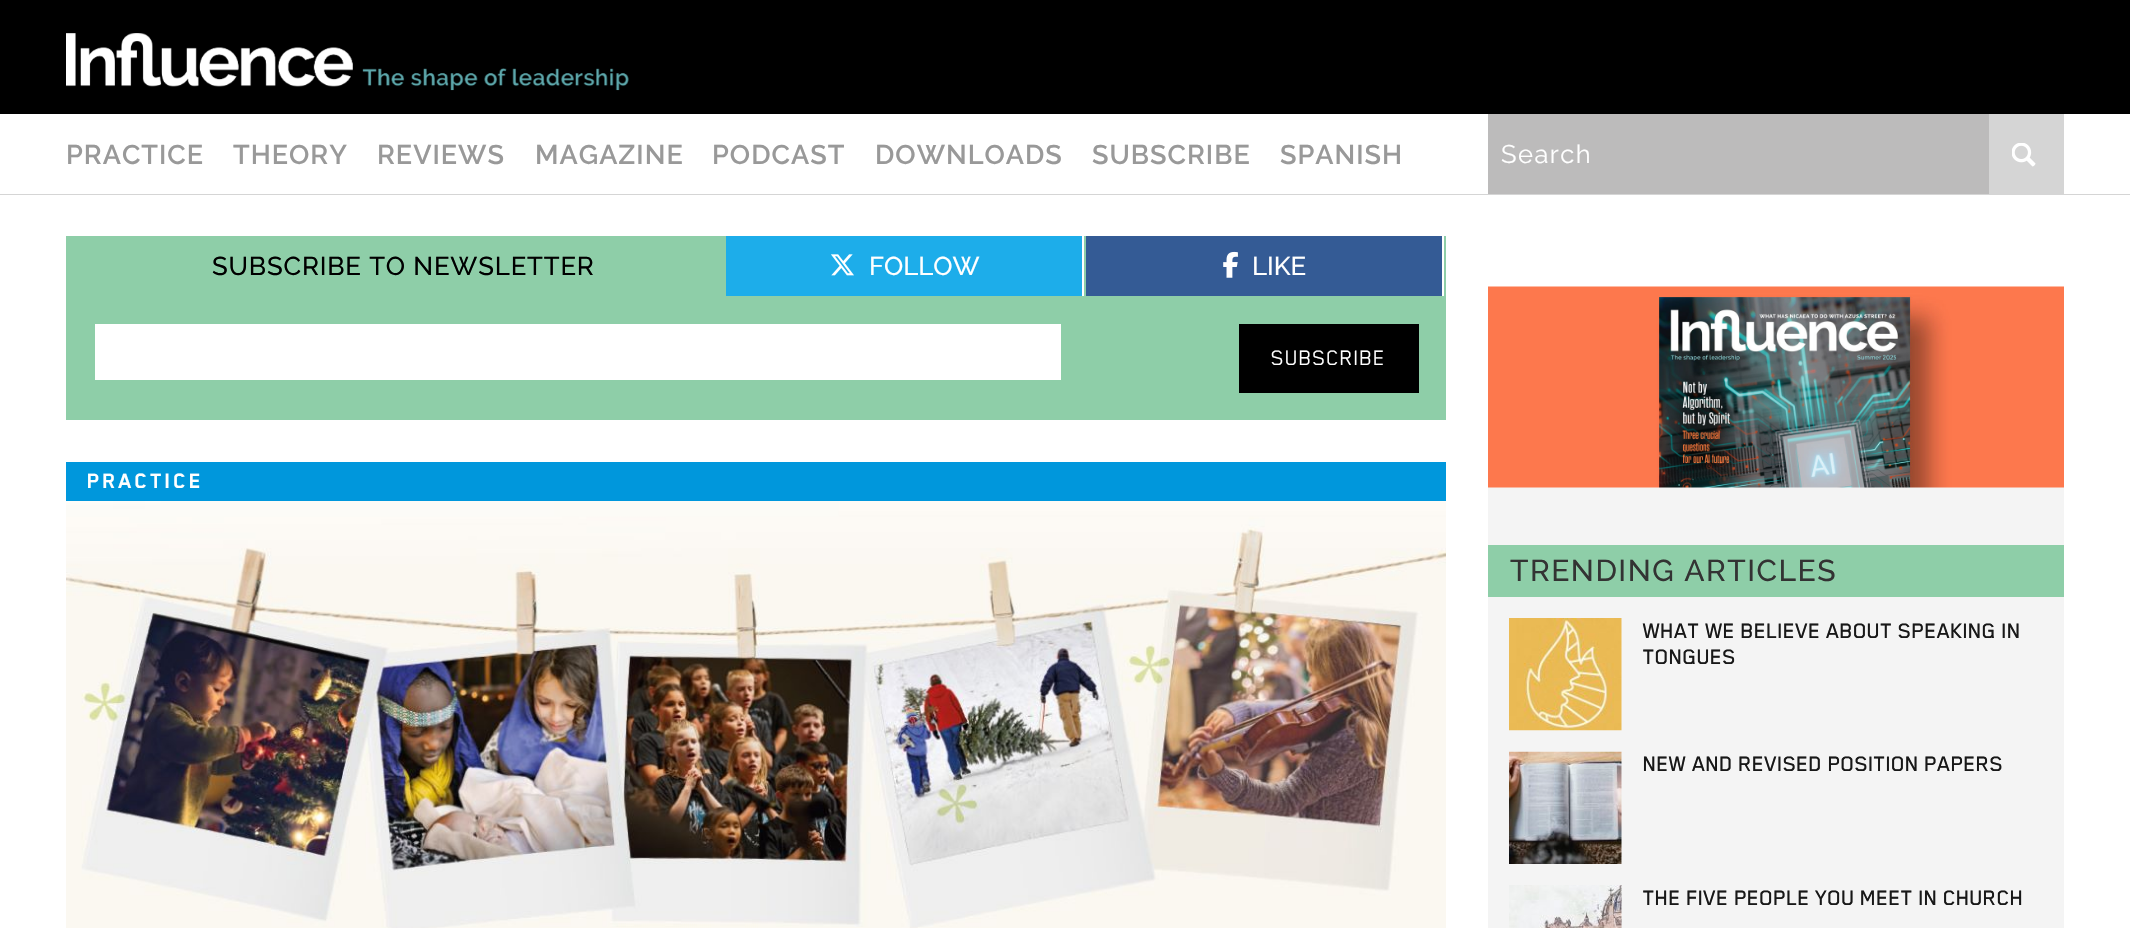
void draw(SkCanvas* canvas) {
  SkPaint paint;
  paint.setAntiAlias(true);
  auto face = [&](const char* family, int weight, float size, bool italic = false) {
    SkFontStyle style(weight, SkFontStyle::kNormal_Width,
      italic ? SkFontStyle::kItalic_Slant : SkFontStyle::kUpright_Slant);
    SkFont result(fontMgr->matchFamilyStyle(family, style), size);
    result.setSubpixel(true);
    return result;
  };
  auto writeSpaced = [&](const char* s, float x, float y, const SkFont& font, const SkPaint& ink, float letter, float word) {
    std::vector<SkGlyphID> glyphs(font.countText(s, strlen(s), SkTextEncoding::kUTF8));
    std::vector<float> xs(glyphs.size());
    font.textToGlyphs(s, strlen(s), SkTextEncoding::kUTF8, glyphs);
    font.getXPos(glyphs, xs, x);
    float extra = 0;
    for (size_t i = 0; i < glyphs.size(); i++) {
      xs[i] += extra;
      extra += letter + word * (glyphs[i] == font.unicharToGlyph(' '));
    }
    canvas->drawTextBlob(SkTextBlob::MakeFromPosHGlyphs(glyphs, xs, y, font), 0, 0, ink);
  };
  auto paste = [&](const char* path, float x, float y, float w, float h) {
    auto image = SkImages::DeferredFromEncodedData(SkData::MakeFromFileName(path));
    canvas->drawImageRect(image, SkRect::MakeXYWH(x, y, w, h), SkSamplingOptions());
  };
  canvas->clear(0xffffffff);
  paint.setColor(0xff000000);
  canvas->drawRect(SkRect::MakeXYWH(0, 0, 2130, 114), paint);
  paste("img/1.png", 66, 33, 563, 58);
  {
    const struct { float x, y, w, h; SkColor color; } items[] = {
      {0, 194, 2130, 1, 0xffd5d5d5},
      {1488, 114, 501, 80, 0xffbcbbbb},
      {1989, 114, 75, 80, 0xffd5d5d5},
    };
    for (auto [x, y, w, h, color] : items) {
      paint.setColor(color);
      canvas->drawRect(SkRect::MakeXYWH(x, y, w, h), paint);
    }
  }
  paste("img/2.png", 2012, 143, 24, 24);
  {
    const struct { float x, y, w, h; SkColor color; } items[] = {
      {66, 236, 1380, 184, 0xff8ecea8},
      {726, 236, 356, 60, 0xff1dadea},
      {1082, 236, 2, 60, 0xffffffff},
    };
    for (auto [x, y, w, h, color] : items) {
      paint.setColor(color);
      canvas->drawRect(SkRect::MakeXYWH(x, y, w, h), paint);
    }
  }
  paste("img/3.png", 831, 254, 23, 22);
  paint.setColor(0xff345b95);
  canvas->drawRect(SkRect::MakeXYWH(1086, 236, 356, 60), paint);
  paint.setColor(0xffffffff);
  canvas->drawRect(SkRect::MakeXYWH(1442, 236, 2, 60), paint);
  paste("img/4.png", 1223, 251, 15, 27);
  {
    const struct { float x, y, w, h; SkColor color; } items[] = {
      {95, 324, 966, 56, 0xffffffff},
      {1239, 324, 180, 69, 0xff000000},
      {66, 462, 1380, 39, 0xff0097dc},
    };
    for (auto [x, y, w, h, color] : items) {
      paint.setColor(color);
      canvas->drawRect(SkRect::MakeXYWH(x, y, w, h), paint);
    }
  }
  paste("img/5.png", 66, 501, 1380, 427);
  paint.setColor(0xfff4f4f4);
  canvas->drawRect(SkRect::MakeXYWH(1488, 487, 576, 441), paint);
  paste("img/6.png", 1488, 286, 576, 202);
  paint.setColor(0xff8ecea8);
  canvas->drawRect(SkRect::MakeXYWH(1488, 545, 576, 52), paint);
  paste("img/7.png", 1509, 618, 113, 113);
  paste("img/8.png", 1509, 751, 113, 113);
  paste("img/9.png", 1509, 885, 113, 43);
  auto f0 = face("Raleway", 600, 27);
  paint.setColor(0xff999999);
  {
    const struct { const char* s; float x, y; } items[] = {
      {"PRACTICE", 66, 164},
      {"THEORY", 233, 164},
      {"REVIEWS", 377, 164},
      {"MAGAZINE", 535, 164},
      {"PODCAST", 712, 164},
      {"DOWNLOADS", 875, 164},
      {"SUBSCRIBE", 1092, 164},
      {"SPANISH", 1280, 164},
    };
    for (auto [s, x, y] : items) {
      writeSpaced(s, x, y, f0, paint, 1, 0);
    }
  }
  auto f1 = face("Raleway", 400, 25.5f);
  paint.setColor(0xffffffff);
  writeSpaced("Search", 1501, 163, f1, paint, 1.5f, 0);
  auto f2 = face("Raleway", 500, 25.75f);
  paint.setColor(0xff000000);
  writeSpaced("SUBSCRIBE TO NEWSLETTER", 212, 275, f2, paint, 0.85f, 0);
  paint.setColor(0xffffffff);
  canvas->drawString("FOLLOW", 869, 275, f2, paint);
  canvas->drawString("LIKE", 1252, 275, f2, paint);
  auto f3 = face("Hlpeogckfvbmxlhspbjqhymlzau", 400, 24);
  writeSpaced("SUBSCRIBE", 1271, 365, f3, paint, 0.75f, 0);
  auto f4 = face("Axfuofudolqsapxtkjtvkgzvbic", 700, 24);
  writeSpaced("PRACTICE", 87, 488, f4, paint, 2.5f, 0);
  auto f5 = face("Raleway", 500, 30);
  paint.setColor(0xff333333);
  writeSpaced("TRENDING ARTICLES", 1510, 581, f5, paint, 1.5f, 0);
  auto f6 = face("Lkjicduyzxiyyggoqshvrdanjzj", 500, 24);
  paint.setColor(0xff181818);
  {
    const struct { const char* s; float x, y; } items[] = {
      {"WHAT WE BELIEVE ABOUT SPEAKING IN", 1643, 638},
      {"TONGUES", 1643, 664},
      {"NEW AND REVISED POSITION PAPERS", 1643, 771},
      {"THE FIVE PEOPLE YOU MEET IN CHURCH", 1643, 905},
    };
    for (auto [s, x, y] : items) {
      canvas->drawString(s, x, y, f6, paint);
    }
  }
}
